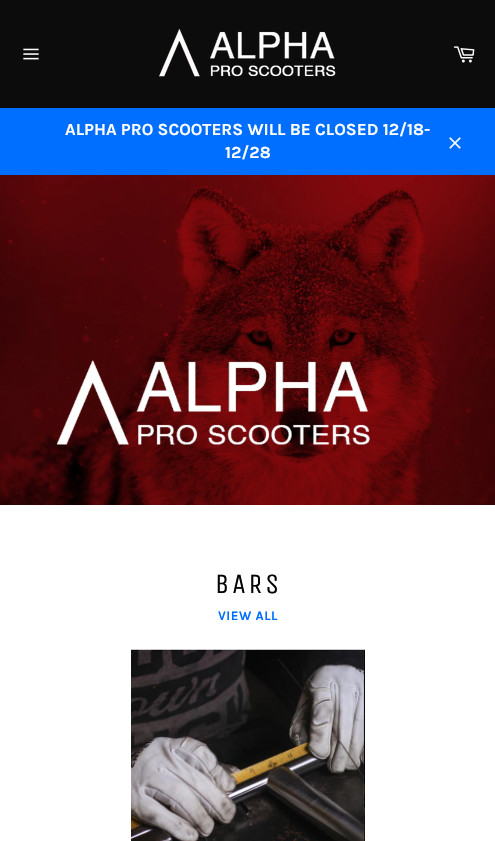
void draw(SkCanvas* canvas) {
  SkPaint paint;
  paint.setAntiAlias(true);
  auto face = [&](const char* family, int weight, float size, bool italic = false) {
    SkFontStyle style(weight, SkFontStyle::kNormal_Width,
      italic ? SkFontStyle::kItalic_Slant : SkFontStyle::kUpright_Slant);
    SkFont result(fontMgr->matchFamilyStyle(family, style), size);
    result.setSubpixel(true);
    return result;
  };
  auto writeSpaced = [&](const char* s, float x, float y, const SkFont& font, const SkPaint& ink, float letter, float word) {
    std::vector<SkGlyphID> glyphs(font.countText(s, strlen(s), SkTextEncoding::kUTF8));
    std::vector<float> xs(glyphs.size());
    font.textToGlyphs(s, strlen(s), SkTextEncoding::kUTF8, glyphs);
    font.getXPos(glyphs, xs, x);
    float extra = 0;
    for (size_t i = 0; i < glyphs.size(); i++) {
      xs[i] += extra;
      extra += letter + word * (glyphs[i] == font.unicharToGlyph(' '));
    }
    canvas->drawTextBlob(SkTextBlob::MakeFromPosHGlyphs(glyphs, xs, y, font), 0, 0, ink);
  };
  auto paste = [&](const char* path, float x, float y, float w, float h) {
    auto image = SkImages::DeferredFromEncodedData(SkData::MakeFromFileName(path));
    canvas->drawImageRect(image, SkRect::MakeXYWH(x, y, w, h), SkSamplingOptions());
  };
  canvas->clear(0xffffffff);
  paint.setColor(0xff0c0c0d);
  canvas->drawRect(SkRect::MakeXYWH(0, 0, 495, 108), paint);
  paste("img/1.png", 23, 48, 16, 12);
  paste("img/2.png", 159, 28, 177, 49);
  paste("img/3.png", 453, 46, 22, 17);
  paint.setColor(0xff006eff);
  canvas->drawRect(SkRect::MakeXYWH(0, 108, 495, 67), paint);
  paste("img/4.png", 449, 137, 12, 12);
  paste("img/5.png", 0, 175, 495, 330);
  paste("img/6.png", 131, 649, 234, 192);
  auto f0 = face("Karla", 700, 17);
  paint.setColor(0xffffffff);
  canvas->drawString("ALPHA PRO SCOOTERS WILL BE CLOSED 12/18-", 65, 135, f0, paint);
  canvas->drawString("12/28", 225, 158, f0, paint);
  auto f1 = face("Unica One", 400, 28);
  paint.setColor(0xff030303);
  writeSpaced("BARS", 215, 593, f1, paint, 3, 0);
  auto f2 = face("Karla", 700, 13);
  paint.setColor(0xff006eff);
  writeSpaced("VIEW ALL", 218, 620, f2, paint, 0.5f, 0);
}
